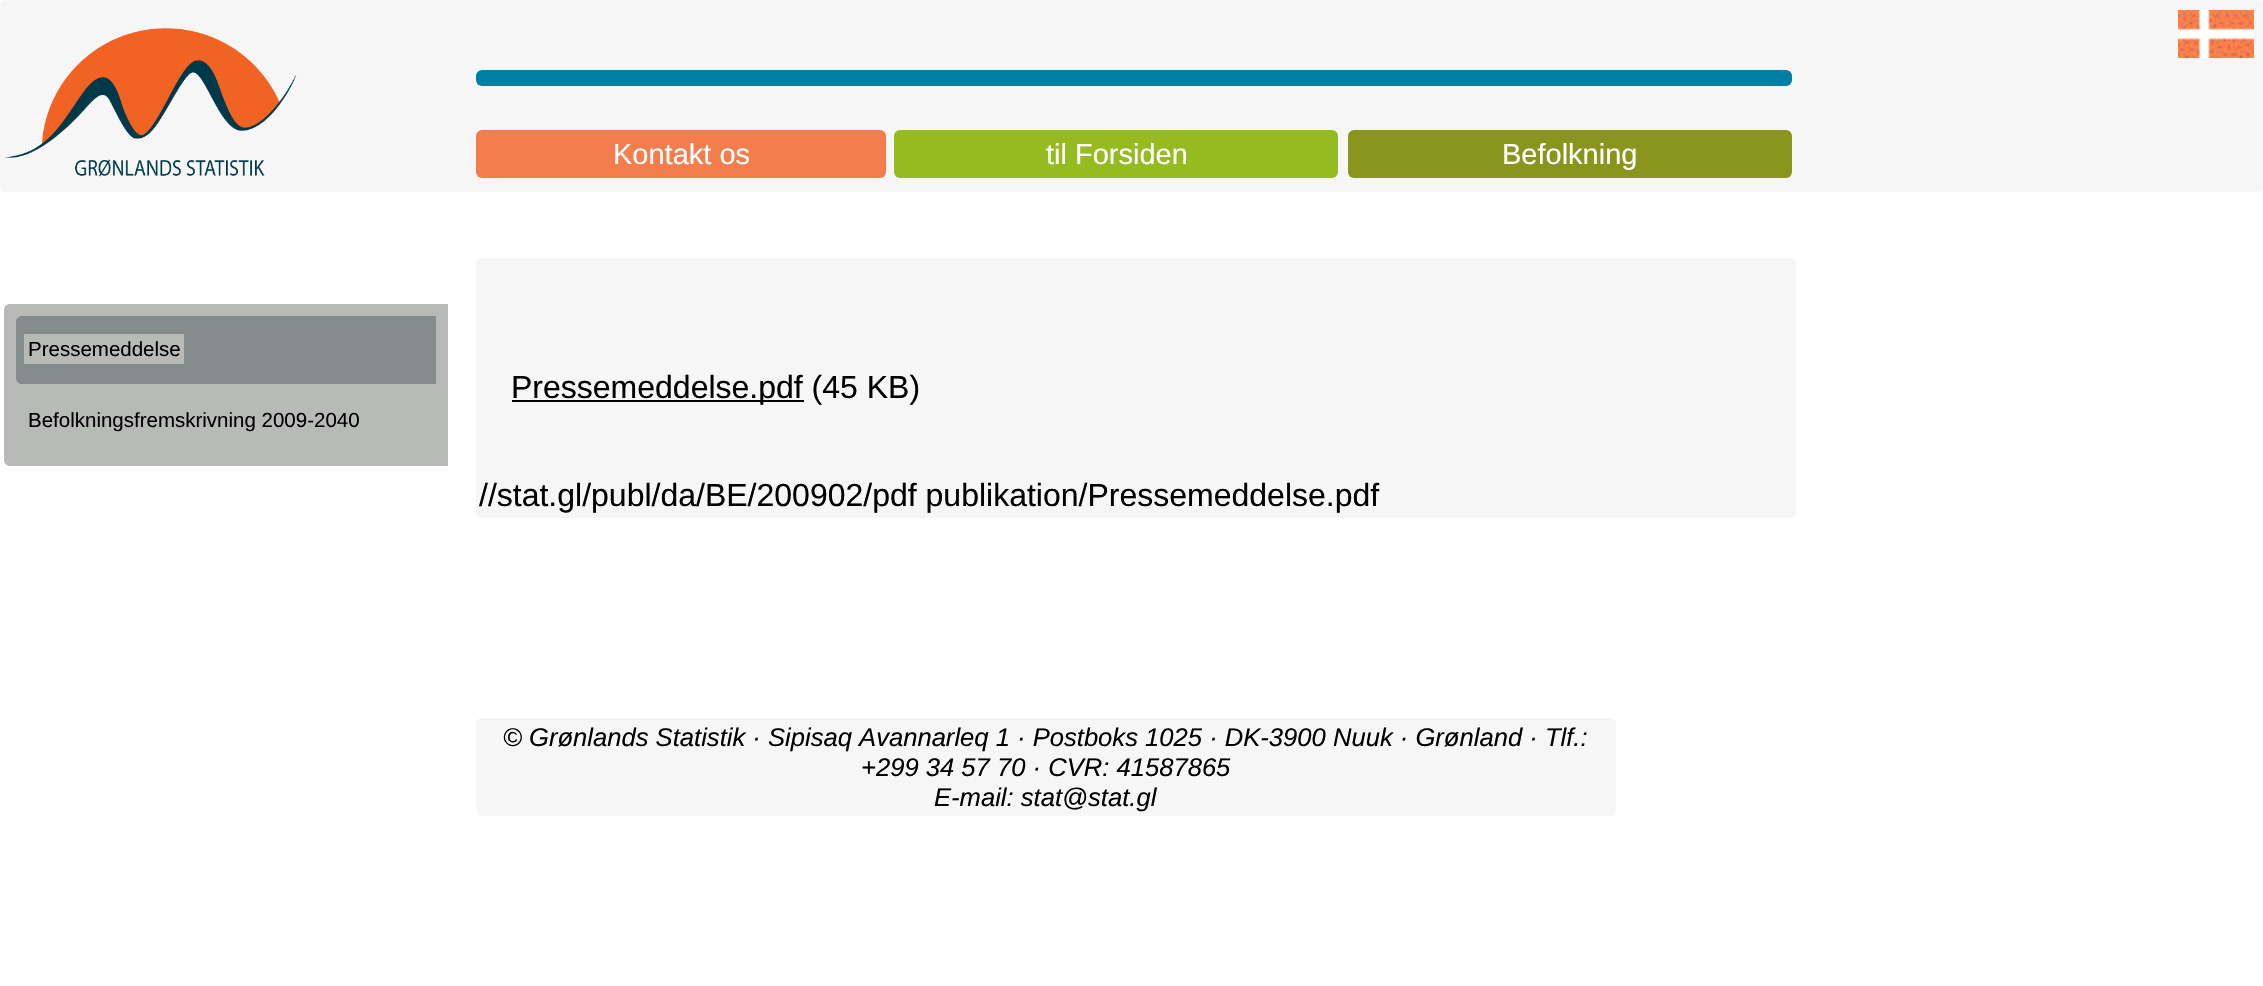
void draw(SkCanvas* canvas) {
  SkPaint paint;
  paint.setAntiAlias(true);
  auto face = [&](const char* family, int weight, float size, bool italic = false) {
    SkFontStyle style(weight, SkFontStyle::kNormal_Width,
      italic ? SkFontStyle::kItalic_Slant : SkFontStyle::kUpright_Slant);
    SkFont result(fontMgr->matchFamilyStyle(family, style), size);
    result.setSubpixel(true);
    return result;
  };
  auto paste = [&](const char* path, float x, float y, float w, float h) {
    auto image = SkImages::DeferredFromEncodedData(SkData::MakeFromFileName(path));
    canvas->drawImageRect(image, SkRect::MakeXYWH(x, y, w, h), SkSamplingOptions());
  };
  auto shape = [&](const char* data, bool evenOdd = false) {
    SkPath result = *SkParsePath::FromSVGString(data);
    if (evenOdd) result.setFillType(SkPathFillType::kEvenOdd);
    return result;
  };
  canvas->clear(0xffffffff);
  paint.setColor(0xfff6f6f7);
  canvas->drawRoundRect(SkRect::MakeXYWH(0, 0, 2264, 192), 6, 6, paint);
  paste("img/1.png", 5, 28, 292, 149);
  paint.setColor(0xff007fa4);
  canvas->drawRoundRect(SkRect::MakeXYWH(476, 70, 1316, 16), 6, 6, paint);
  paint.setColor(0xfff47d4d);
  canvas->drawRoundRect(SkRect::MakeXYWH(476, 130, 410, 48), 6, 6, paint);
  paint.setColor(0xff94bb1f);
  canvas->drawRoundRect(SkRect::MakeXYWH(894, 130, 444, 48), 6, 6, paint);
  paint.setColor(0xff8a951e);
  canvas->drawRoundRect(SkRect::MakeXYWH(1348, 130, 444, 48), 6, 6, paint);
  paste("img/2.png", 2178, 10, 76, 48);
  paint.setColor(0xffb8bab8);
  canvas->drawPath(shape("M10 304H448V466H10C6.5 466 4 463.5 4 460V310C4 306.5 6.5 304 10 304Z"), paint);
  paint.setColor(0xff848c8c);
  canvas->drawPath(shape("M22 316H436V384H22C18.5 384 16 381.5 16 378V322C16 318.5 18.5 316 22 316Z"), paint);
  paint.setColor(0xffb8bab8);
  canvas->drawRect(SkRect::MakeXYWH(24, 334, 160, 30), paint);
  paint.setColor(0xfff6f6f7);
  canvas->drawRoundRect(SkRect::MakeXYWH(476, 258, 1320, 260), 6, 6, paint);
  paint.setColor(0xff000000);
  canvas->drawRect(SkRect::MakeXYWH(512, 400, 292, 2), paint);
  paint.setColor(0xfff6f6f7);
  canvas->drawRoundRect(SkRect::MakeXYWH(476, 718, 1140, 98), 6, 6, paint);
  auto f0 = face("Liberation Sans", 400, 29);
  paint.setColor(0xffffffff);
  {
    const struct { const char* s; float x, y; } items[] = {
      {"Kontakt os", 613, 164},
      {"til Forsiden", 1046, 164},
      {"Befolkning", 1502, 164},
    };
    for (auto [s, x, y] : items) {
      canvas->drawString(s, x, y, f0, paint);
    }
  }
  auto f1 = face("Liberation Sans", 400, 20.5f);
  paint.setColor(0xff000000);
  canvas->drawString("Pressemeddelse", 28, 356, f1, paint);
  canvas->drawString("Befolkningsfremskrivning 2009-2040", 28, 427, f1, paint);
  auto f2 = face("Liberation Sans", 400, 32);
  canvas->drawString("Pressemeddelse.pdf (45 KB)", 511, 398, f2, paint);
  canvas->drawString("//stat.gl/publ/da/BE/200902/pdf publikation/Pressemeddelse.pdf", 479, 506, f2, paint);
  auto f3 = face("Liberation Sans", 400, 25.6f, true);
  {
    const struct { const char* s; float x, y; } items[] = {
      {"© Grønlands Statistik · Sipisaq Avannarleq 1 · Postboks 1025 · DK-3900 Nuuk · Grønland · Tlf.:", 503, 746},
      {"+299 34 57 70 · CVR: 41587865", 861, 776},
      {"E-mail: stat@stat.gl", 934, 806},
    };
    for (auto [s, x, y] : items) {
      canvas->drawString(s, x, y, f3, paint);
    }
  }
}
